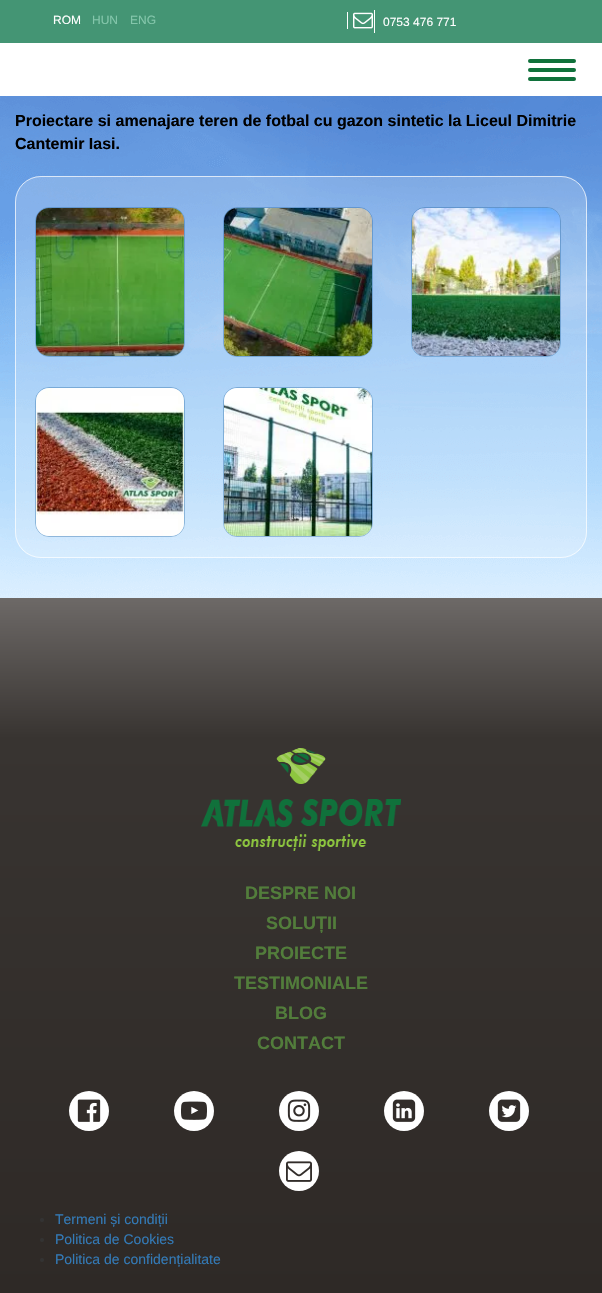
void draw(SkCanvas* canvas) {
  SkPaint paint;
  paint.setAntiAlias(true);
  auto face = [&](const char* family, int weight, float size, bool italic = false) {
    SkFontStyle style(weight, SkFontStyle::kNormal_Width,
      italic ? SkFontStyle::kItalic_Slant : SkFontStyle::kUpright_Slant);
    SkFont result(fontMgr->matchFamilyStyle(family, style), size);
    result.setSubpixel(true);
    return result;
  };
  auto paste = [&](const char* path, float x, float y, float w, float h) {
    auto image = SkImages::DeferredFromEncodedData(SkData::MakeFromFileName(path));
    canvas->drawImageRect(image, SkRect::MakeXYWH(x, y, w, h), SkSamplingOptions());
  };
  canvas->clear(0xffffffff);
  paste("img/1.png", 0, 96, 602, 502);
  paint.setColor(0xff449574);
  canvas->drawRect(SkRect::MakeXYWH(0, 0, 602, 43), paint);
  paint.setColor(0xffffffff);
  canvas->drawRect(SkRect::MakeXYWH(347, 12, 1, 17), paint);
  paste("img/2.png", 353, 12, 20, 17);
  canvas->drawRect(SkRect::MakeXYWH(374, 10, 1, 23), paint);
  paint.setColor(0xff10713b);
  canvas->drawRoundRect(SkRect::MakeXYWH(528, 59, 48, 4), 2, 2, paint);
  canvas->drawRoundRect(SkRect::MakeXYWH(528, 68, 48, 4), 2, 2, paint);
  canvas->drawRoundRect(SkRect::MakeXYWH(528, 77, 48, 4), 2, 2, paint);
  paint.setColor(0x33ffffff);
  canvas->drawRoundRect(SkRect::MakeXYWH(15, 176, 572, 382), 26, 26, paint);
  paint.setStroke(true);
  paint.setStrokeWidth(1);
  paint.setColor(0xb3ffffff);
  canvas->drawRoundRect(SkRect::MakeXYWH(15.5f, 176.5f, 571, 381), 25.5f, 25.5f, paint);
  paint.setColor(0x662b6ca5);
  canvas->drawRoundRect(SkRect::MakeXYWH(35.5f, 207.5f, 149, 149), 13.5f, 13.5f, paint);
  paste("img/3.png", 36, 208, 148, 148);
  canvas->drawRoundRect(SkRect::MakeXYWH(223.5f, 207.5f, 149, 149), 13.5f, 13.5f, paint);
  paste("img/4.png", 224, 208, 148, 148);
  canvas->drawRoundRect(SkRect::MakeXYWH(411.5f, 207.5f, 149, 149), 13.5f, 13.5f, paint);
  paste("img/5.png", 412, 208, 148, 148);
  canvas->drawRoundRect(SkRect::MakeXYWH(35.5f, 387.5f, 149, 149), 13.5f, 13.5f, paint);
  paste("img/6.png", 36, 388, 148, 148);
  canvas->drawRoundRect(SkRect::MakeXYWH(223.5f, 387.5f, 149, 149), 13.5f, 13.5f, paint);
  paste("img/7.png", 224, 388, 148, 148);
  paint.setStroke(false);
  {
    const SkColor colors[] = {0xff6d6967, 0xff383431, 0xff2e2926};
    const float stops[] = {0, 0.2f, 1};
    const SkPoint ends[] = {{301, 598}, {301, 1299}};
    paint.setShader(SkGradientShader::MakeLinear(ends, colors, stops, 3, SkTileMode::kClamp));
    paint.setAlpha(255);
  }
  canvas->drawRect(SkRect::MakeXYWH(0, 598, 602, 695), paint);
  paste("img/8.png", 201, 748, 200, 103);
  paint.setShader(nullptr);
  paint.setColor(0xffffffff);
  canvas->drawCircle(89, 1111, 20, paint);
  paste("img/9.png", 77, 1099, 24, 23);
  canvas->drawCircle(194, 1111, 20, paint);
  paste("img/10.png", 181, 1101, 26, 19);
  canvas->drawCircle(299, 1111, 20, paint);
  paste("img/11.png", 287, 1099, 24, 23);
  canvas->drawCircle(404, 1111, 20, paint);
  paste("img/12.png", 392, 1099, 24, 23);
  canvas->drawCircle(509, 1111, 20, paint);
  paste("img/13.png", 497, 1099, 24, 23);
  canvas->drawCircle(299, 1171, 20, paint);
  paste("img/14.png", 286, 1161, 26, 21);
  paint.setColor(0xff333333);
  canvas->drawCircle(42, 1220, 2, paint);
  canvas->drawCircle(42, 1240, 2, paint);
  canvas->drawCircle(42, 1260, 2, paint);
  auto f0 = face("Liberation Sans", 400, 12);
  paint.setColor(0xffffffff);
  canvas->drawString("ROM", 53, 24, f0, paint);
  paint.setColor(0xff84c6ab);
  canvas->drawString("HUN", 92, 24, f0, paint);
  canvas->drawString("ENG", 130, 24, f0, paint);
  paint.setColor(0xffffffff);
  canvas->drawString("0753 476 771", 383, 26, f0, paint);
  auto f1 = face("Liberation Sans", 700, 16);
  paint.setColor(0xff000000);
  canvas->drawString("Proiectare si amenajare teren de fotbal cu gazon sintetic la Liceul Dimitrie", 15, 126, f1, paint);
  canvas->drawString("Cantemir Iasi.", 15, 149, f1, paint);
  auto f2 = face("Liberation Sans", 700, 18);
  paint.setColor(0xff527d3b);
  {
    const struct { const char* s; float x, y; } items[] = {
      {"DESPRE NOI", 245, 899},
      {"SOLUȚII", 266, 929},
      {"PROIECTE", 255, 959},
      {"TESTIMONIALE", 234, 989},
      {"BLOG", 275, 1019},
      {"CONTACT", 257, 1049},
    };
    for (auto [s, x, y] : items) {
      canvas->drawString(s, x, y, f2, paint);
    }
  }
  auto f3 = face("Liberation Sans", 400, 14);
  paint.setColor(0xff337ab7);
  {
    const struct { const char* s; float x, y; } items[] = {
      {"Termeni și condiții", 55, 1224},
      {"Politica de Cookies", 55, 1244},
      {"Politica de confidențialitate", 55, 1264},
    };
    for (auto [s, x, y] : items) {
      canvas->drawString(s, x, y, f3, paint);
    }
  }
}
